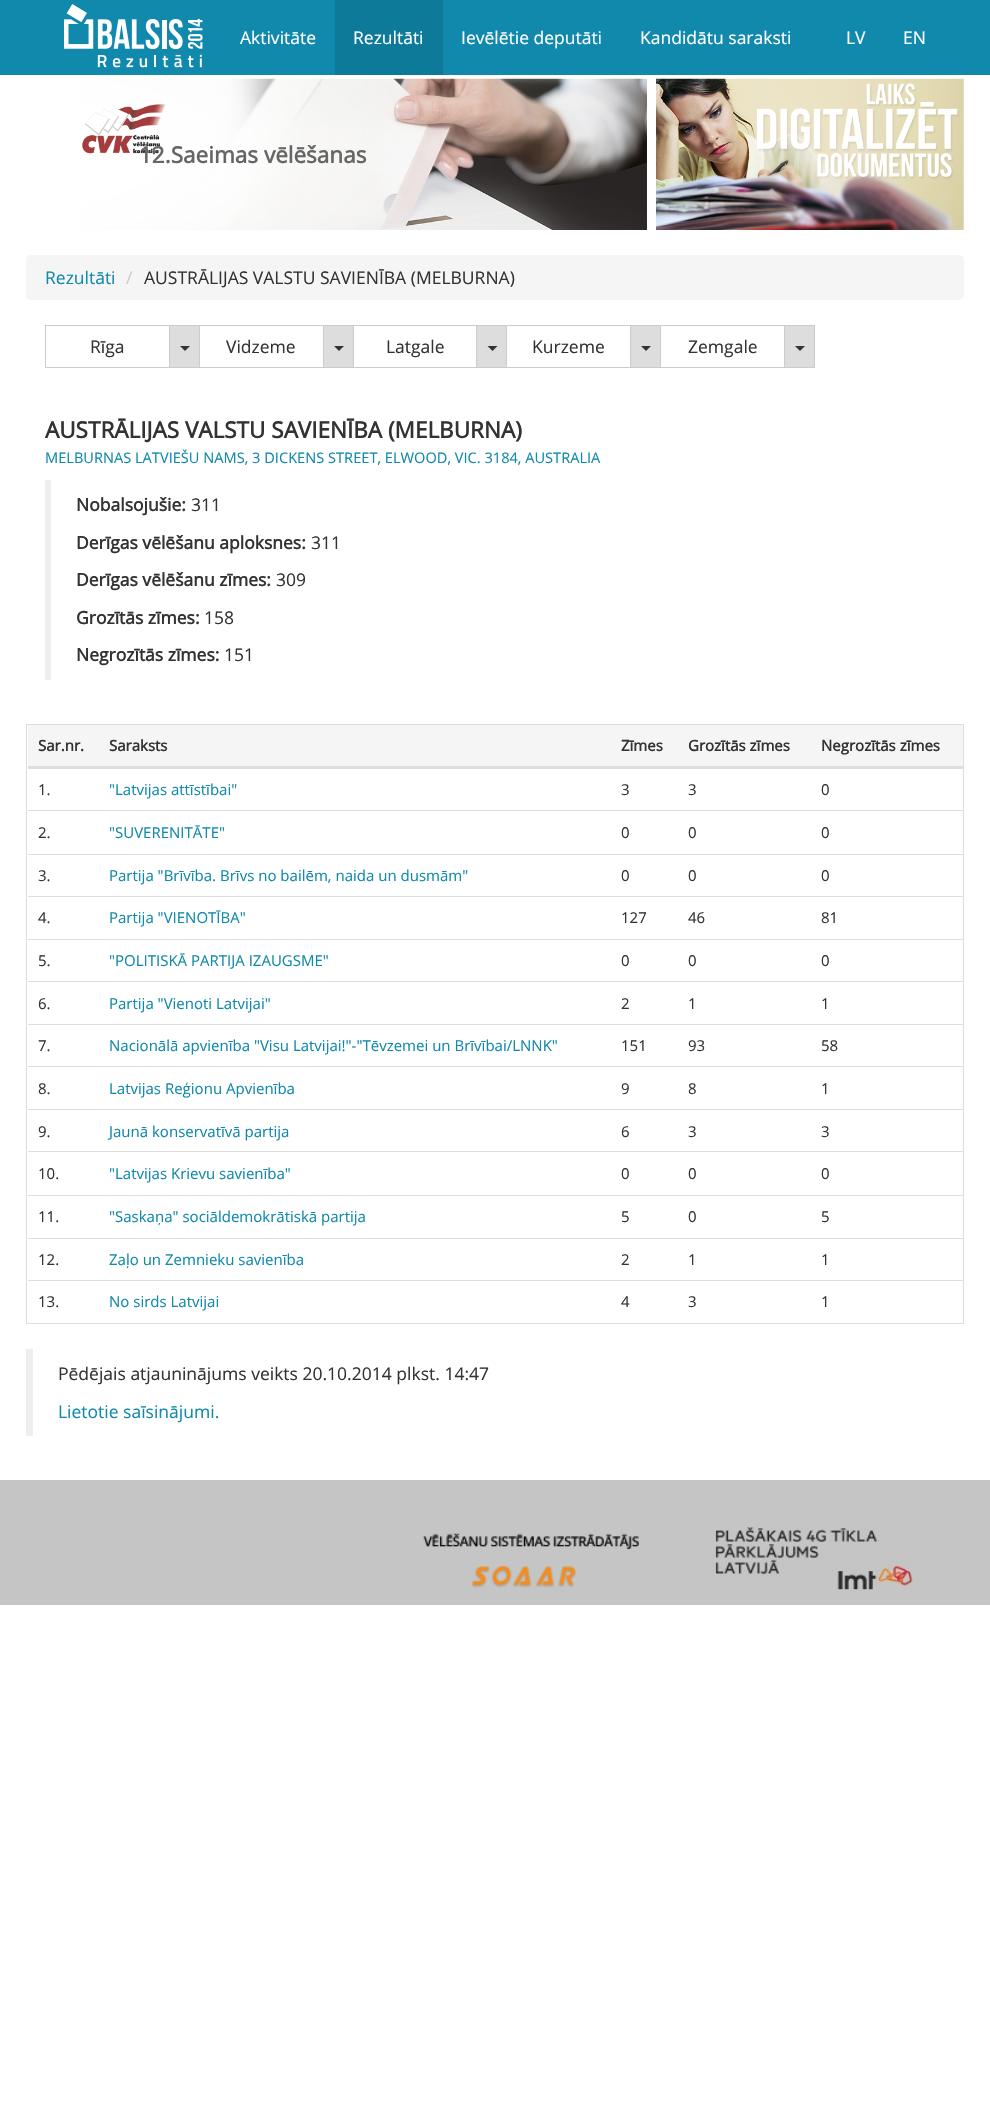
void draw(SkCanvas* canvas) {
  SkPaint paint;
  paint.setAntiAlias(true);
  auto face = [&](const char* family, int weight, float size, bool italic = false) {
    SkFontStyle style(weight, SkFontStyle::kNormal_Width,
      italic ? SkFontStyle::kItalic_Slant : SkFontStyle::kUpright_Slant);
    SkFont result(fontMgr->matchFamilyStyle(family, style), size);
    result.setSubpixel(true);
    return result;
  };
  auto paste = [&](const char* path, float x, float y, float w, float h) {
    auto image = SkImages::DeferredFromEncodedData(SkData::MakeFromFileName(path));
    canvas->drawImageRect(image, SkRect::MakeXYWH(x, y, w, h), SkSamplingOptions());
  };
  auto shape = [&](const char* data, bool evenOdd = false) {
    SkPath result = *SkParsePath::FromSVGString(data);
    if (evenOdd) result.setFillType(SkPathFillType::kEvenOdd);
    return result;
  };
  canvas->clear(0xffffffff);
  paint.setColor(0xff1089ac);
  canvas->drawRect(SkRect::MakeXYWH(0, 0, 990, 75), paint);
  paste("img/1.png", 64, 4, 139, 64);
  paint.setColor(0xff0e7a99);
  canvas->drawRect(SkRect::MakeXYWH(335, 0, 108, 75), paint);
  paste("img/2.png", 82, 78, 882, 152);
  paint.setColor(0xfff5f5f5);
  canvas->drawRoundRect(SkRect::MakeXYWH(26, 255, 938, 45), 5, 5, paint);
  paint.setStroke(true);
  paint.setStrokeWidth(1);
  paint.setColor(0xffcccccc);
  canvas->drawRect(SkRect::MakeXYWH(45.5f, 325.5f, 124, 42), paint);
  paint.setStroke(false);
  paint.setColor(0xffdddddd);
  canvas->drawRect(SkRect::MakeXYWH(169.5f, 325.5f, 30, 42), paint);
  paint.setStroke(true);
  paint.setColor(0xffcccccc);
  canvas->drawRect(SkRect::MakeXYWH(169.5f, 325.5f, 30, 42), paint);
  paint.setStroke(false);
  paint.setColor(0xff333333);
  canvas->drawPath(shape("M180 346H190L185 351Z"), paint);
  paint.setStroke(true);
  paint.setColor(0xffcccccc);
  canvas->drawRect(SkRect::MakeXYWH(199.5f, 325.5f, 124, 42), paint);
  paint.setStroke(false);
  paint.setColor(0xffdddddd);
  canvas->drawRect(SkRect::MakeXYWH(323.5f, 325.5f, 30, 42), paint);
  paint.setStroke(true);
  paint.setColor(0xffcccccc);
  canvas->drawRect(SkRect::MakeXYWH(323.5f, 325.5f, 30, 42), paint);
  paint.setStroke(false);
  paint.setColor(0xff333333);
  canvas->drawPath(shape("M334 346H344L339 351Z"), paint);
  paint.setStroke(true);
  paint.setColor(0xffcccccc);
  canvas->drawRect(SkRect::MakeXYWH(353.5f, 325.5f, 124, 42), paint);
  paint.setStroke(false);
  paint.setColor(0xffdddddd);
  canvas->drawRect(SkRect::MakeXYWH(477, 326, 29, 41), paint);
  paint.setStroke(true);
  paint.setColor(0xffcccccc);
  canvas->drawRect(SkRect::MakeXYWH(476.5f, 325.5f, 31, 42), paint);
  paint.setStroke(false);
  paint.setColor(0xff333333);
  canvas->drawPath(shape("M487.5 346H497.5L492.5 351Z"), paint);
  paint.setColor(0xffffffff);
  canvas->drawRect(SkRect::MakeXYWH(507, 326, 1, 41), paint);
  paint.setStroke(true);
  paint.setColor(0xffcccccc);
  canvas->drawRect(SkRect::MakeXYWH(506.5f, 325.5f, 124, 42), paint);
  paint.setStroke(false);
  paint.setColor(0xffdddddd);
  canvas->drawRect(SkRect::MakeXYWH(630.5f, 325.5f, 30, 42), paint);
  paint.setStroke(true);
  paint.setColor(0xffcccccc);
  canvas->drawRect(SkRect::MakeXYWH(630.5f, 325.5f, 30, 42), paint);
  paint.setStroke(false);
  paint.setColor(0xff333333);
  canvas->drawPath(shape("M641 346H651L646 351Z"), paint);
  paint.setStroke(true);
  paint.setColor(0xffcccccc);
  canvas->drawRect(SkRect::MakeXYWH(660.5f, 325.5f, 124, 42), paint);
  paint.setStroke(false);
  paint.setColor(0xffdddddd);
  canvas->drawRect(SkRect::MakeXYWH(784.5f, 325.5f, 30, 42), paint);
  paint.setStroke(true);
  paint.setColor(0xffcccccc);
  canvas->drawRect(SkRect::MakeXYWH(784.5f, 325.5f, 30, 42), paint);
  paint.setStroke(false);
  paint.setColor(0xff333333);
  canvas->drawPath(shape("M795 346H805L800 351Z"), paint);
  paint.setColor(0xffeeeeee);
  canvas->drawRect(SkRect::MakeXYWH(45, 480, 6, 200), paint);
  paint.setStroke(true);
  paint.setColor(0xffdddddd);
  canvas->drawRect(SkRect::MakeXYWH(26.5f, 724.5f, 937, 599), paint);
  paint.setStroke(false);
  {
    const struct { float x, y, w, h; SkColor color; } items[] = {
      {28, 725, 935, 41, 0xfff5f5f5},
      {28, 766, 935, 3, 0xffdddddd},
      {28, 810, 935, 1, 0xffdddddd},
      {28, 854, 935, 1, 0xffdddddd},
      {28, 896, 935, 1, 0xffdddddd},
      {28, 939, 935, 1, 0xffdddddd},
      {28, 981, 935, 1, 0xffdddddd},
      {28, 1024, 935, 1, 0xffdddddd},
      {28, 1066, 935, 1, 0xffdddddd},
      {28, 1109, 935, 1, 0xffdddddd},
      {28, 1151, 935, 1, 0xffdddddd},
      {28, 1195, 935, 1, 0xffdddddd},
      {28, 1238, 935, 1, 0xffdddddd},
      {28, 1280, 935, 1, 0xffdddddd},
      {26, 1349, 7, 87, 0xffeeeeee},
      {0, 1480, 990, 125, 0xffc5c5c5},
    };
    for (auto [x, y, w, h, color] : items) {
      paint.setColor(color);
      canvas->drawRect(SkRect::MakeXYWH(x, y, w, h), paint);
    }
  }
  paste("img/3.png", 423, 1533, 216, 55);
  paste("img/4.png", 715, 1526, 201, 67);
  auto f0 = face("Open Sans", 400, 17.5f);
  paint.setColor(0xffffffff);
  {
    const struct { const char* s; float x, y; } items[] = {
      {"Aktivitāte", 240, 44},
      {"Rezultāti", 353, 44},
      {"Ievēlētie deputāti", 461, 44},
      {"Kandidātu saraksti", 640, 44},
      {"LV", 846, 44},
      {"EN", 903, 44},
    };
    for (auto [s, x, y] : items) {
      canvas->drawString(s, x, y, f0, paint);
    }
  }
  auto f1 = face("Open Sans", 700, 22.5f);
  paint.setColor(0xff666666);
  canvas->drawString("12.Saeimas vēlēšanas", 139, 163, f1, paint);
  paint.setColor(0xff1089ac);
  canvas->drawString("Rezultāti", 45, 284, f0, paint);
  paint.setColor(0xffcccccc);
  canvas->drawString("/", 126, 284, f0, paint);
  paint.setColor(0xff333333);
  {
    const struct { const char* s; float x, y; } items[] = {
      {"AUSTRĀLIJAS VALSTU SAVIENĪBA (MELBURNA)", 144, 284},
      {"Rīga", 90, 353},
      {"Vidzeme", 226, 353},
      {"Latgale", 386, 353},
      {"Kurzeme", 532, 353},
      {"Zemgale", 688, 353},
    };
    for (auto [s, x, y] : items) {
      canvas->drawString(s, x, y, f0, paint);
    }
  }
  canvas->drawString("AUSTRĀLIJAS VALSTU SAVIENĪBA (MELBURNA)", 45, 438, f1, paint);
  auto f2 = face("Open Sans", 400, 14.6f);
  paint.setColor(0xff1089ac);
  canvas->drawString("MELBURNAS LATVIEŠU NAMS, 3 DICKENS STREET, ELWOOD, VIC. 3184, AUSTRALIA", 45, 463, f2, paint);
  auto f3 = face("Open Sans", 700, 17.5f);
  paint.setColor(0xff333333);
  canvas->drawString("Nobalsojušie:", 76, 511, f3, paint);
  canvas->drawString("311", 191, 511, f0, paint);
  canvas->drawString("Derīgas vēlēšanu aploksnes:", 76, 549, f3, paint);
  canvas->drawString("311", 311, 549, f0, paint);
  canvas->drawString("Derīgas vēlēšanu zīmes:", 76, 586, f3, paint);
  canvas->drawString("309", 276, 586, f0, paint);
  canvas->drawString("Grozītās zīmes:", 76, 624, f3, paint);
  canvas->drawString("158", 204, 624, f0, paint);
  canvas->drawString("Negrozītās zīmes:", 76, 661, f3, paint);
  canvas->drawString("151", 224, 661, f0, paint);
  auto f4 = face("Open Sans", 700, 15);
  {
    const struct { const char* s; float x, y; } items[] = {
      {"Sar.nr.", 38, 751},
      {"Saraksts", 109, 751},
      {"Zīmes", 621, 751},
      {"Grozītās zīmes", 688, 751},
      {"Negrozītās zīmes", 821, 751},
    };
    for (auto [s, x, y] : items) {
      canvas->drawString(s, x, y, f4, paint);
    }
  }
  auto f5 = face("Open Sans", 400, 15);
  canvas->drawString("1.", 38, 795, f5, paint);
  paint.setColor(0xff1089ac);
  canvas->drawString("\"Latvijas attīstībai\"", 109, 795, f5, paint);
  paint.setColor(0xff333333);
  {
    const struct { const char* s; float x, y; } items[] = {
      {"3", 621, 795},
      {"3", 688, 795},
      {"0", 821, 795},
      {"2.", 38, 838},
    };
    for (auto [s, x, y] : items) {
      canvas->drawString(s, x, y, f5, paint);
    }
  }
  paint.setColor(0xff1089ac);
  canvas->drawString("\"SUVERENITĀTE\"", 109, 838, f5, paint);
  paint.setColor(0xff333333);
  {
    const struct { const char* s; float x, y; } items[] = {
      {"0", 621, 838},
      {"0", 688, 838},
      {"0", 821, 838},
      {"3.", 38, 881},
    };
    for (auto [s, x, y] : items) {
      canvas->drawString(s, x, y, f5, paint);
    }
  }
  paint.setColor(0xff1089ac);
  canvas->drawString("Partija \"Brīvība. Brīvs no bailēm, naida un dusmām\"", 109, 881, f5, paint);
  paint.setColor(0xff333333);
  {
    const struct { const char* s; float x, y; } items[] = {
      {"0", 621, 881},
      {"0", 688, 881},
      {"0", 821, 881},
      {"4.", 38, 923},
    };
    for (auto [s, x, y] : items) {
      canvas->drawString(s, x, y, f5, paint);
    }
  }
  paint.setColor(0xff1089ac);
  canvas->drawString("Partija \"VIENOTĪBA\"", 109, 923, f5, paint);
  paint.setColor(0xff333333);
  {
    const struct { const char* s; float x, y; } items[] = {
      {"127", 621, 923},
      {"46", 688, 923},
      {"81", 821, 923},
      {"5.", 38, 966},
    };
    for (auto [s, x, y] : items) {
      canvas->drawString(s, x, y, f5, paint);
    }
  }
  paint.setColor(0xff1089ac);
  canvas->drawString("\"POLITISKĀ PARTIJA IZAUGSME\"", 109, 966, f5, paint);
  paint.setColor(0xff333333);
  {
    const struct { const char* s; float x, y; } items[] = {
      {"0", 621, 966},
      {"0", 688, 966},
      {"0", 821, 966},
      {"6.", 38, 1009},
    };
    for (auto [s, x, y] : items) {
      canvas->drawString(s, x, y, f5, paint);
    }
  }
  paint.setColor(0xff1089ac);
  canvas->drawString("Partija \"Vienoti Latvijai\"", 109, 1009, f5, paint);
  paint.setColor(0xff333333);
  {
    const struct { const char* s; float x, y; } items[] = {
      {"2", 621, 1009},
      {"1", 688, 1009},
      {"1", 821, 1009},
      {"7.", 38, 1051},
    };
    for (auto [s, x, y] : items) {
      canvas->drawString(s, x, y, f5, paint);
    }
  }
  paint.setColor(0xff1089ac);
  canvas->drawString("Nacionālā apvienība \"Visu Latvijai!\"-\"Tēvzemei un Brīvībai/LNNK\"", 109, 1051, f5, paint);
  paint.setColor(0xff333333);
  {
    const struct { const char* s; float x, y; } items[] = {
      {"151", 621, 1051},
      {"93", 688, 1051},
      {"58", 821, 1051},
      {"8.", 38, 1094},
    };
    for (auto [s, x, y] : items) {
      canvas->drawString(s, x, y, f5, paint);
    }
  }
  paint.setColor(0xff1089ac);
  canvas->drawString("Latvijas Reģionu Apvienība", 109, 1094, f5, paint);
  paint.setColor(0xff333333);
  {
    const struct { const char* s; float x, y; } items[] = {
      {"9", 621, 1094},
      {"8", 688, 1094},
      {"1", 821, 1094},
      {"9.", 38, 1137},
    };
    for (auto [s, x, y] : items) {
      canvas->drawString(s, x, y, f5, paint);
    }
  }
  paint.setColor(0xff1089ac);
  canvas->drawString("Jaunā konservatīvā partija", 109, 1137, f5, paint);
  paint.setColor(0xff333333);
  {
    const struct { const char* s; float x, y; } items[] = {
      {"6", 621, 1137},
      {"3", 688, 1137},
      {"3", 821, 1137},
      {"10.", 38, 1179},
    };
    for (auto [s, x, y] : items) {
      canvas->drawString(s, x, y, f5, paint);
    }
  }
  paint.setColor(0xff1089ac);
  canvas->drawString("\"Latvijas Krievu savienība\"", 109, 1179, f5, paint);
  paint.setColor(0xff333333);
  {
    const struct { const char* s; float x, y; } items[] = {
      {"0", 621, 1179},
      {"0", 688, 1179},
      {"0", 821, 1179},
      {"11.", 38, 1222},
    };
    for (auto [s, x, y] : items) {
      canvas->drawString(s, x, y, f5, paint);
    }
  }
  paint.setColor(0xff1089ac);
  canvas->drawString("\"Saskaņa\" sociāldemokrātiskā partija", 109, 1222, f5, paint);
  paint.setColor(0xff333333);
  {
    const struct { const char* s; float x, y; } items[] = {
      {"5", 621, 1222},
      {"0", 688, 1222},
      {"5", 821, 1222},
      {"12.", 38, 1265},
    };
    for (auto [s, x, y] : items) {
      canvas->drawString(s, x, y, f5, paint);
    }
  }
  paint.setColor(0xff1089ac);
  canvas->drawString("Zaļo un Zemnieku savienība", 109, 1265, f5, paint);
  paint.setColor(0xff333333);
  {
    const struct { const char* s; float x, y; } items[] = {
      {"2", 621, 1265},
      {"1", 688, 1265},
      {"1", 821, 1265},
      {"13.", 38, 1307},
    };
    for (auto [s, x, y] : items) {
      canvas->drawString(s, x, y, f5, paint);
    }
  }
  paint.setColor(0xff1089ac);
  canvas->drawString("No sirds Latvijai", 109, 1307, f5, paint);
  paint.setColor(0xff333333);
  {
    const struct { const char* s; float x, y; } items[] = {
      {"4", 621, 1307},
      {"3", 688, 1307},
      {"1", 821, 1307},
    };
    for (auto [s, x, y] : items) {
      canvas->drawString(s, x, y, f5, paint);
    }
  }
  canvas->drawString("Pēdējais atjauninājums veikts 20.10.2014 plkst. 14:47", 58, 1380, f0, paint);
  paint.setColor(0xff1089ac);
  canvas->drawString("Lietotie saīsinājumi.", 58, 1418, f0, paint);
}
